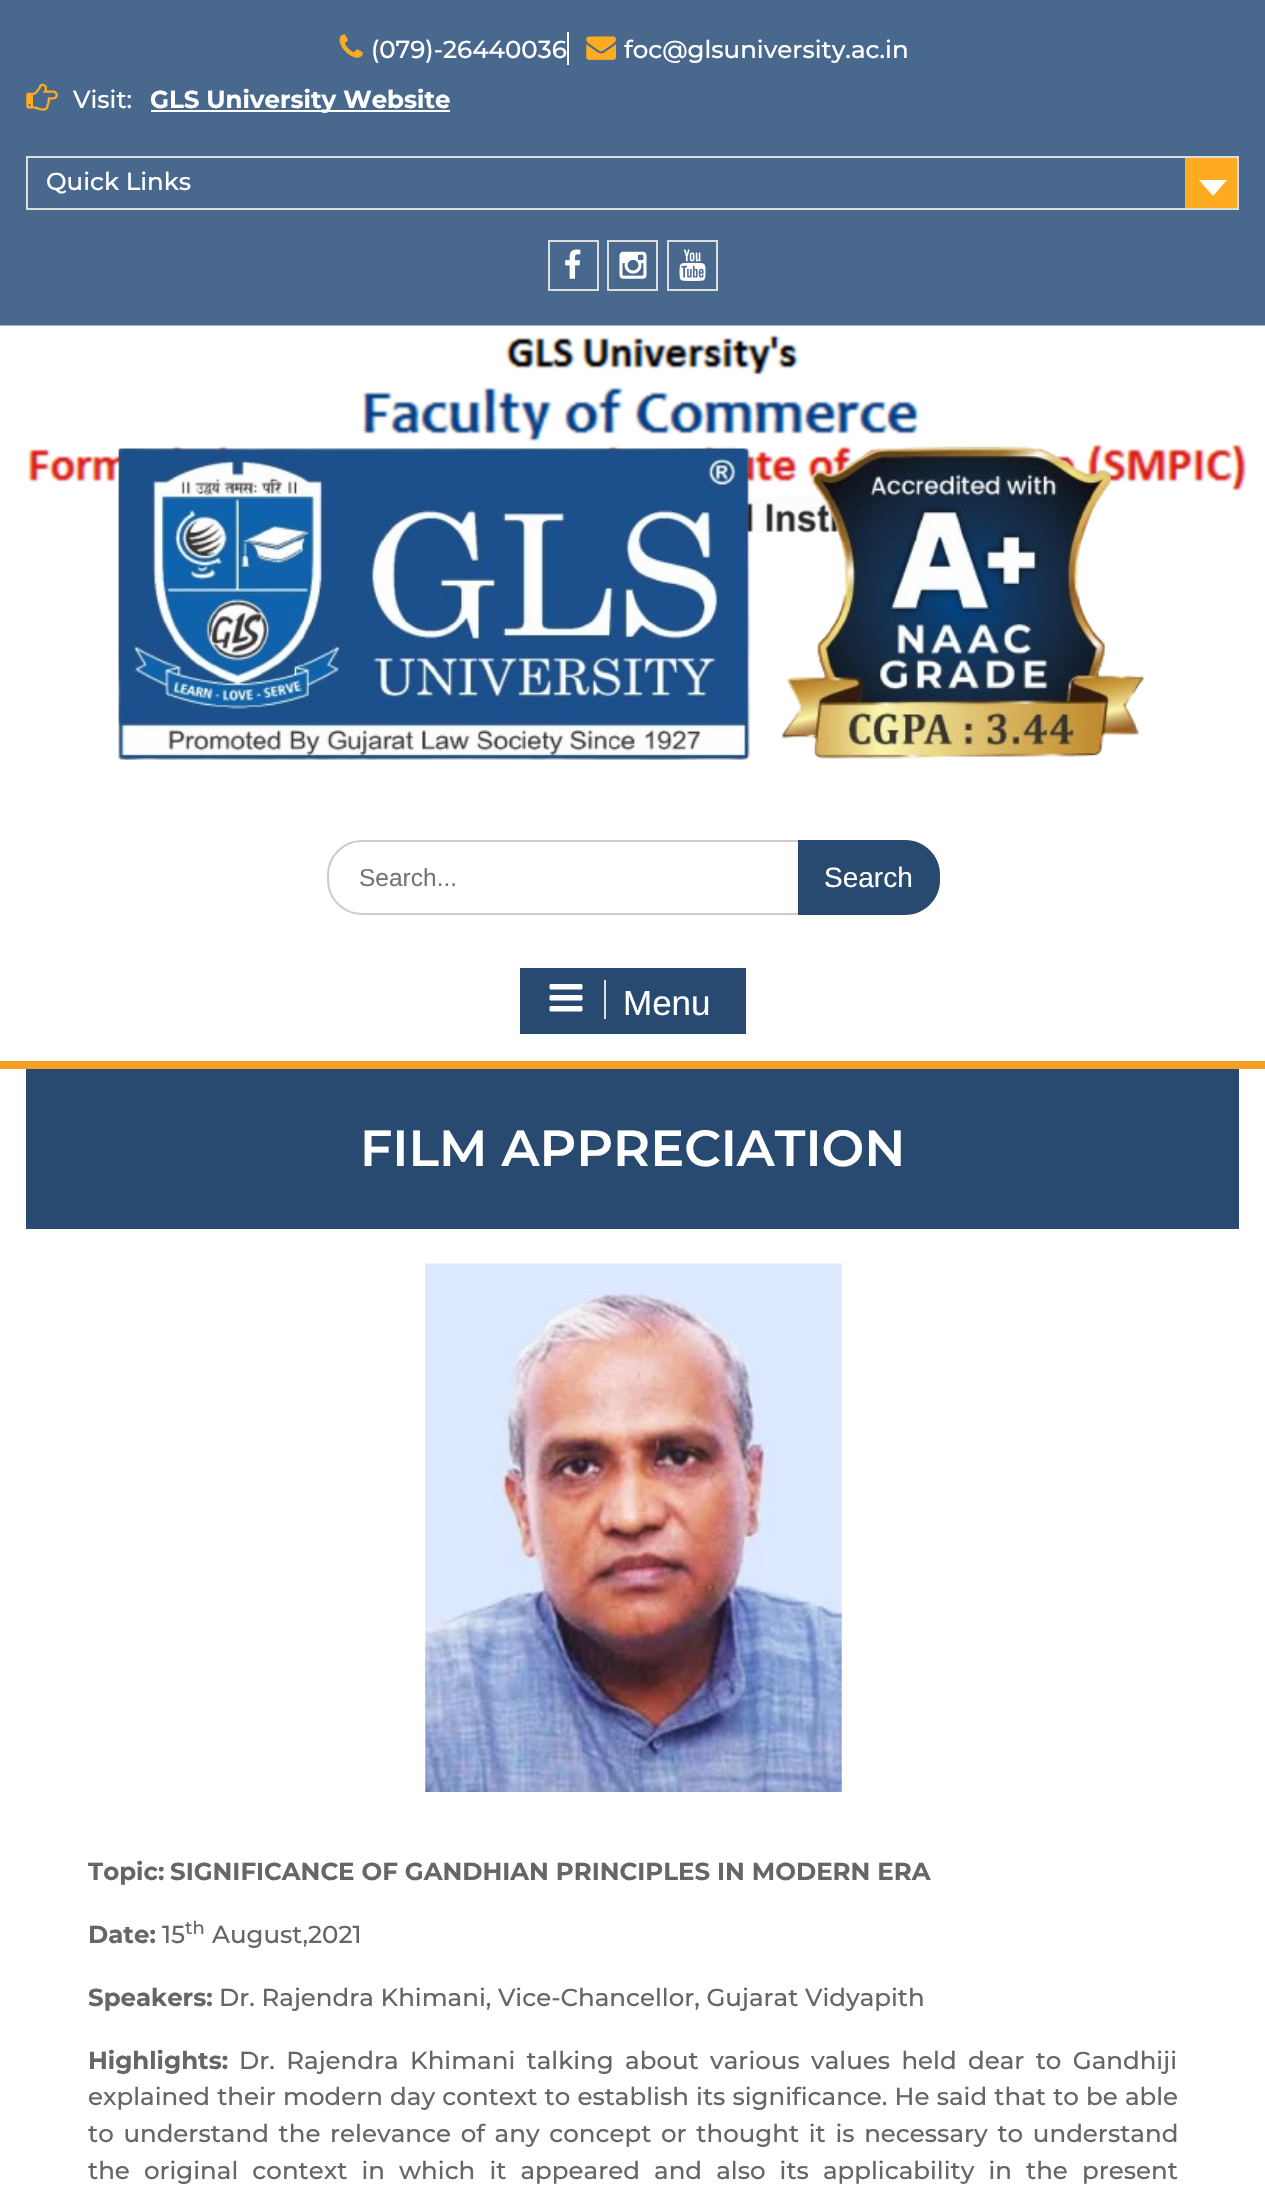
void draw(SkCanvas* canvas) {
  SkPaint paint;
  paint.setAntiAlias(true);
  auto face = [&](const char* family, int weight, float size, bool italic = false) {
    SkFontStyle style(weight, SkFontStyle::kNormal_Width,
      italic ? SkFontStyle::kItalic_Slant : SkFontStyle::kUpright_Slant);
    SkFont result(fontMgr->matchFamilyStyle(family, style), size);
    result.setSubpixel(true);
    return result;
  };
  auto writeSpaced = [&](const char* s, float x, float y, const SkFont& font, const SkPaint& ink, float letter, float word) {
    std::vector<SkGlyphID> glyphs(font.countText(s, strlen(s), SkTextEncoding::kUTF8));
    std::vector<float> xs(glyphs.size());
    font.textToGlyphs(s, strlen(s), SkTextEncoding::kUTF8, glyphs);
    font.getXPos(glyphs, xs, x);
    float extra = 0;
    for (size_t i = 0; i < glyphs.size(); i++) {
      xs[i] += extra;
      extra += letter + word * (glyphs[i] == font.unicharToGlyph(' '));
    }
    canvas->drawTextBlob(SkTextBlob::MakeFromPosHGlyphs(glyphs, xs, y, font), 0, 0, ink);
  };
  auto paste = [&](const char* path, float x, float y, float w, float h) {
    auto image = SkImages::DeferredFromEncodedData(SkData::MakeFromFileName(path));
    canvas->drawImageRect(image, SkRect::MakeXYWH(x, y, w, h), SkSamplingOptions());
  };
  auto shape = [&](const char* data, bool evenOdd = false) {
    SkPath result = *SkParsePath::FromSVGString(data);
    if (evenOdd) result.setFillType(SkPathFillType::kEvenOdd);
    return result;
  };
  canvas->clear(0xffffffff);
  paint.setColor(0xff49688e);
  canvas->drawRect(SkRect::MakeXYWH(0, 0, 1265, 326), paint);
  paste("img/1.png", 339, 34, 24, 24);
  paint.setColor(0xffffffff);
  canvas->drawRect(SkRect::MakeXYWH(567, 32, 2, 33), paint);
  paste("img/2.png", 586, 36, 30, 24);
  paste("img/3.png", 26, 83, 32, 28);
  canvas->drawRect(SkRect::MakeXYWH(151, 110, 299, 2), paint);
  paint.setStroke(true);
  paint.setStrokeWidth(2);
  paint.setColor(0xffdddddd);
  canvas->drawRect(SkRect::MakeXYWH(27, 157, 1211, 52), paint);
  paint.setStroke(false);
  paint.setColor(0xffffab1f);
  canvas->drawRect(SkRect::MakeXYWH(1185, 158, 52, 50), paint);
  paint.setColor(0xffffffff);
  canvas->drawPath(shape("M1199 180H1227L1213 196Z"), paint);
  paint.setStroke(true);
  paint.setColor(0xffdddddd);
  canvas->drawRect(SkRect::MakeXYWH(549, 241, 49, 49), paint);
  paste("img/4.png", 565, 249, 16, 30);
  canvas->drawRect(SkRect::MakeXYWH(608, 241, 49, 49), paint);
  paste("img/5.png", 619, 251, 28, 28);
  canvas->drawRect(SkRect::MakeXYWH(668, 241, 49, 49), paint);
  paste("img/6.png", 679, 249, 27, 32);
  paste("img/7.png", 0, 325, 1265, 208);
  paste("img/8.png", 118, 446, 1026, 314);
  paint.setColor(0xffcccccc);
  canvas->drawRoundRect(SkRect::MakeXYWH(328, 841, 611, 73), 34, 34, paint);
  paint.setStroke(false);
  paint.setColor(0xff294a70);
  canvas->drawPath(shape("M798 840H905C924.5 840 940 855.5 940 875V880C940 899.5 924.5 915 905 915H798Z"), paint);
  {
    const struct { float x, y, w, h; SkColor color; } items[] = {
      {0, 1061, 1265, 8, 0xfff4a024},
      {520, 968, 226, 66, 0xff294a70},
      {604, 980, 2, 39, 0xffdddddd},
    };
    for (auto [x, y, w, h, color] : items) {
      paint.setColor(color);
      canvas->drawRect(SkRect::MakeXYWH(x, y, w, h), paint);
    }
  }
  paste("img/9.png", 549, 984, 34, 28);
  paint.setColor(0xff294a70);
  canvas->drawRect(SkRect::MakeXYWH(26, 1069, 1213, 160), paint);
  paste("img/10.png", 425, 1263, 417, 529);
  auto f0 = face("Montserrat", 500, 24.5f);
  paint.setColor(0xffffffff);
  {
    const struct { const char* s; float x, y; } items[] = {
      {"(079)-26440036", 371, 58},
      {"foc@glsuniversity.ac.in", 624, 58},
      {"Visit:", 73, 108},
    };
    for (auto [s, x, y] : items) {
      canvas->drawString(s, x, y, f0, paint);
    }
  }
  auto f1 = face("Montserrat", 700, 24.5f);
  canvas->drawString("GLS University Website", 150, 108, f1, paint);
  canvas->drawString("Quick Links", 46, 190, f0, paint);
  auto f2 = face("Liberation Sans", 400, 24.5f);
  paint.setColor(0xff757575);
  canvas->drawString("Search...", 359, 886, f2, paint);
  auto f3 = face("Liberation Sans", 400, 28);
  paint.setColor(0xffffffff);
  canvas->drawString("Search", 824, 887, f3, paint);
  auto f4 = face("Liberation Sans", 400, 35);
  canvas->drawString("Menu", 623, 1015, f4, paint);
  auto f5 = face("Montserrat", 600, 50.75f);
  canvas->drawString("FILM APPRECIATION", 360, 1166, f5, paint);
  paint.setColor(0xff666666);
  {
    const struct { const char* s; float x, y; } items[] = {
      {"Topic:", 88, 1880},
      {"SIGNIFICANCE OF GANDHIAN PRINCIPLES IN MODERN ERA", 170, 1880},
      {"Date:", 88, 1943},
    };
    for (auto [s, x, y] : items) {
      canvas->drawString(s, x, y, f1, paint);
    }
  }
  canvas->drawString("15", 162, 1943, f0, paint);
  auto f6 = face("Montserrat", 500, 18);
  canvas->drawString("th", 185, 1934, f6, paint);
  canvas->drawString("August,2021", 212, 1943, f0, paint);
  canvas->drawString("Speakers:", 88, 2006, f1, paint);
  canvas->drawString("Dr. Rajendra Khimani, Vice-Chancellor, Gujarat Vidyapith", 219, 2006, f0, paint);
  canvas->drawString("Highlights:", 88, 2069, f1, paint);
  writeSpaced("Dr. Rajendra Khimani talking about various values held dear to Gandhiji", 239, 2069, f0, paint, 0, 4.75f);
  writeSpaced("explained their modern day context to establish its significance. He said that to be able", 88, 2105, f0, paint, 0, 0.6f);
  writeSpaced("to understand the relevance of any concept or thought it is necessary to understand", 88, 2142, f0, paint, 0, 3.1f);
  writeSpaced("the original context in which it appeared and also its applicability in the present", 88, 2179, f0, paint, 0, 7.5f);
}
